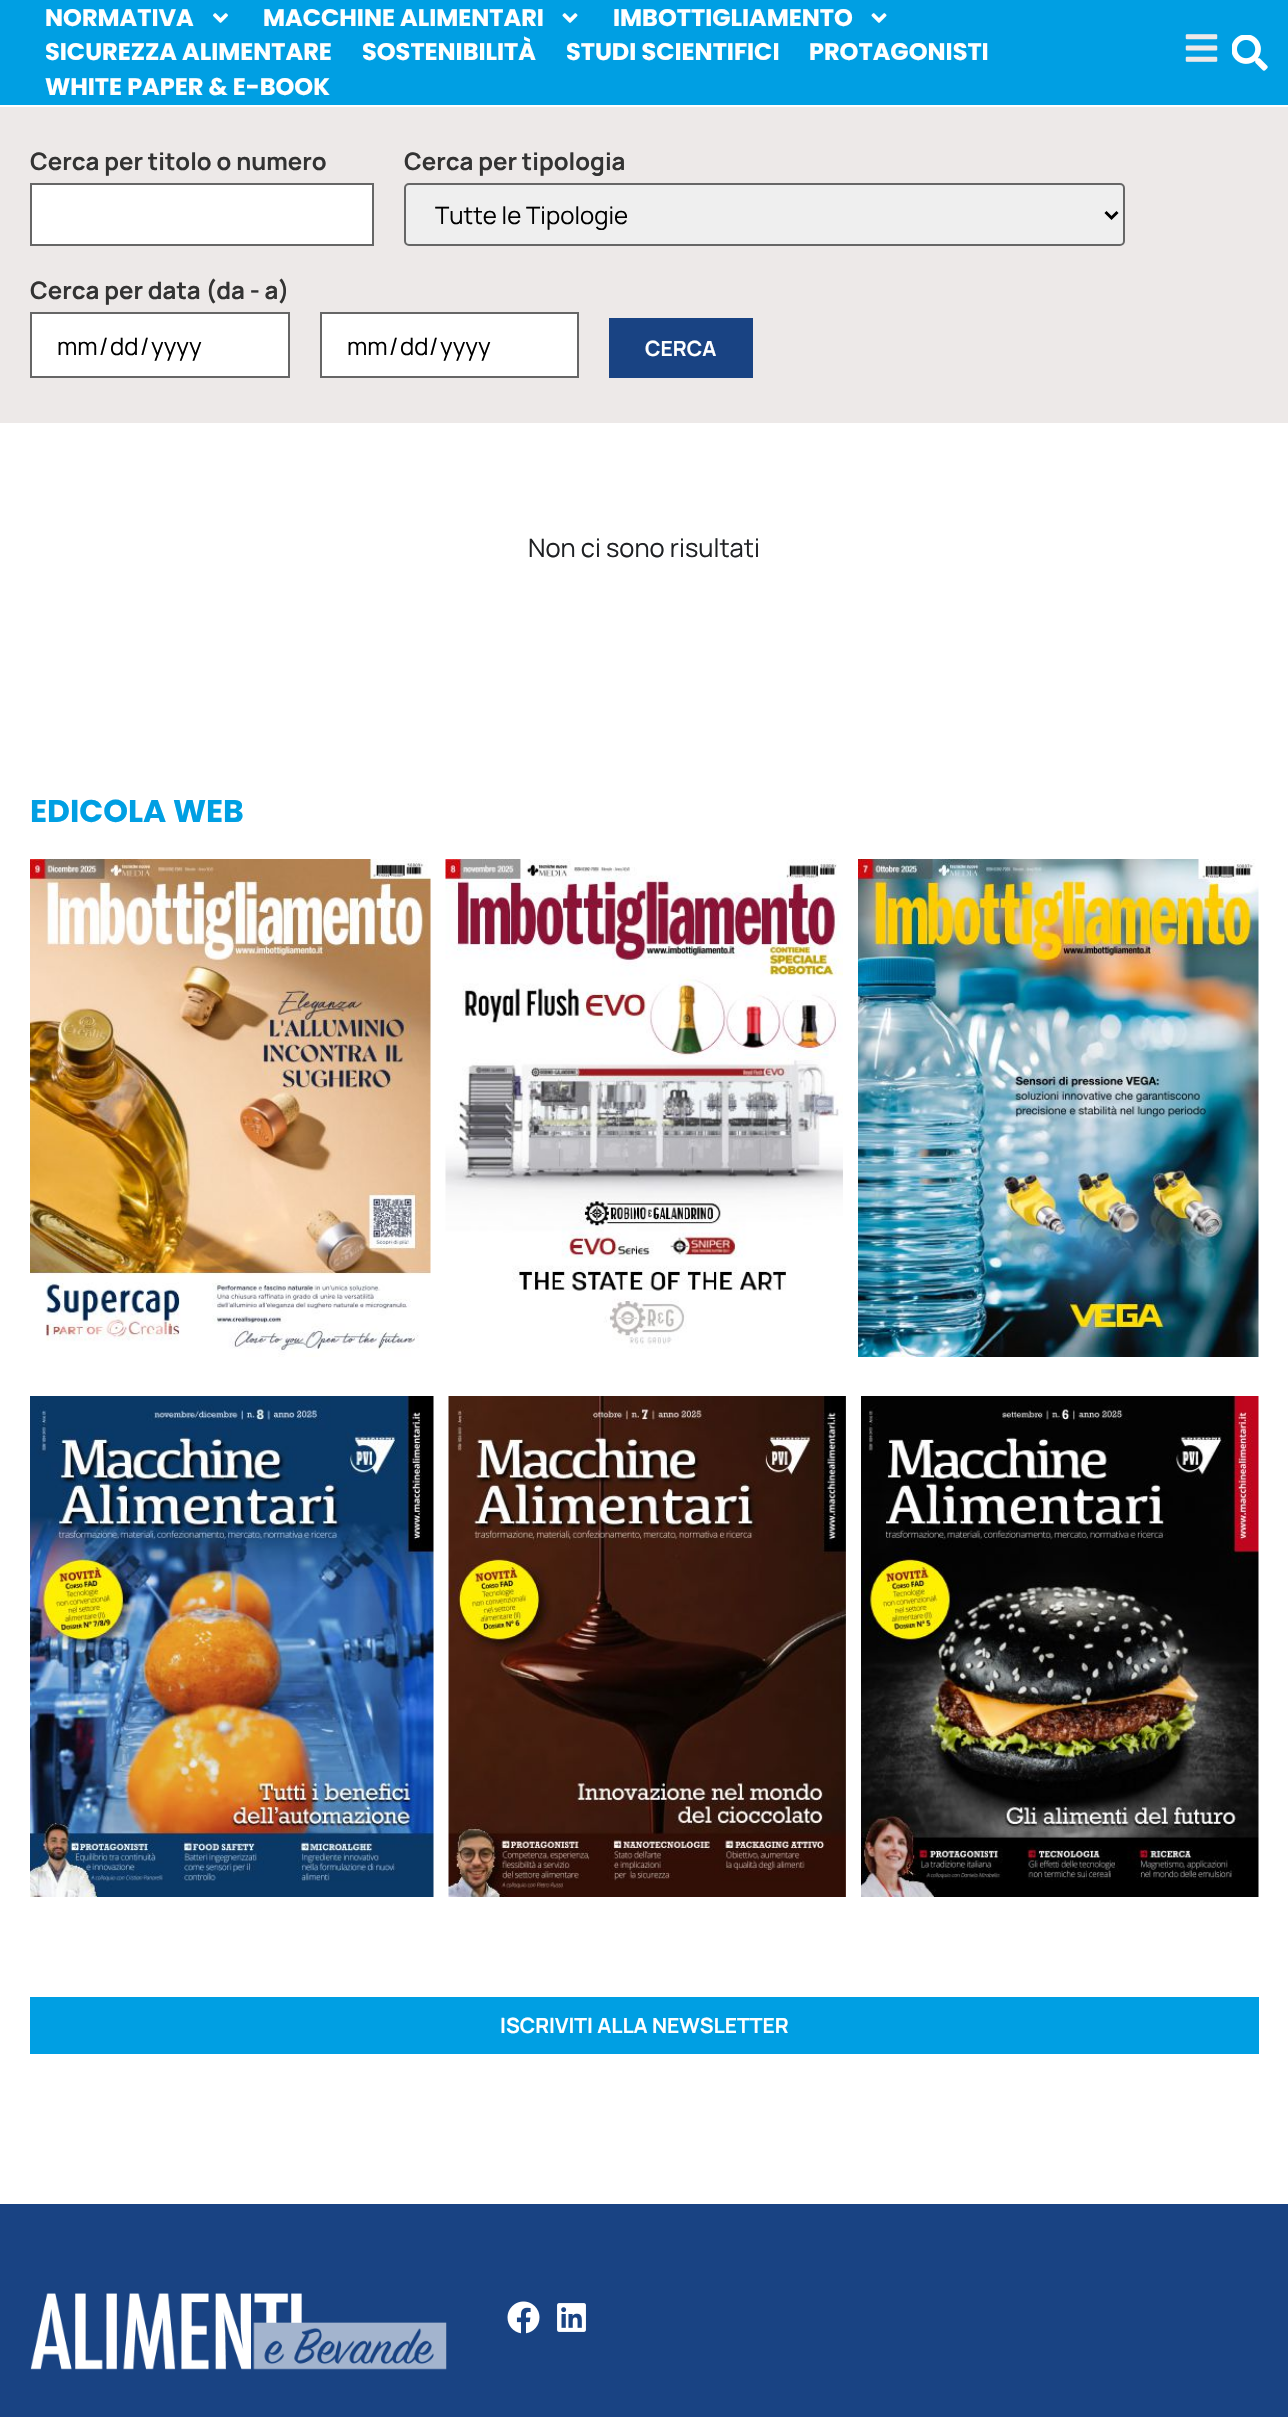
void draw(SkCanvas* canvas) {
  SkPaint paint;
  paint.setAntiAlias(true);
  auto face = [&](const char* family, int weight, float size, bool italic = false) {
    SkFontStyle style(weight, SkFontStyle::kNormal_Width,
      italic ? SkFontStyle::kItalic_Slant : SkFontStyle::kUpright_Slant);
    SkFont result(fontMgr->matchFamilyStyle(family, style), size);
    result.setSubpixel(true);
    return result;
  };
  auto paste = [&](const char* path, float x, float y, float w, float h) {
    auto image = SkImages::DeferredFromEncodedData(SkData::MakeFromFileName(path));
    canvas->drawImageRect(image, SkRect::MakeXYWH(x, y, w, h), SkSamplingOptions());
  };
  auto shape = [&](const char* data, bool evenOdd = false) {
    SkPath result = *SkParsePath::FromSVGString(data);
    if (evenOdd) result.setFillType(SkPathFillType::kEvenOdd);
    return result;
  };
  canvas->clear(0xffffffff);
  paint.setColor(0xff009fe3);
  canvas->drawRect(SkRect::MakeXYWH(0, 0, 1288, 105), paint);
  paste("img/1.png", 213, 13, 15, 10);
  paste("img/2.png", 562, 13, 16, 10);
  paste("img/2.png", 871, 13, 16, 10);
  paste("img/3.png", 1185, 34, 33, 28);
  paste("img/4.png", 1232, 35, 36, 36);
  paint.setColor(0xffede9e8);
  canvas->drawRect(SkRect::MakeXYWH(0, 107, 1288, 316), paint);
  paint.setColor(0xffffffff);
  canvas->drawRect(SkRect::MakeXYWH(31, 184, 342, 61), paint);
  paint.setStroke(true);
  paint.setStrokeWidth(2);
  paint.setColor(0xff666666);
  canvas->drawRect(SkRect::MakeXYWH(31, 184, 342, 61), paint);
  paint.setStroke(false);
  paint.setColor(0xffefefef);
  canvas->drawRoundRect(SkRect::MakeXYWH(405, 184, 719, 61), 4, 4, paint);
  paint.setStroke(true);
  paint.setColor(0xff666666);
  canvas->drawRoundRect(SkRect::MakeXYWH(405, 184, 719, 61), 4, 4, paint);
  paint.setStrokeWidth(3);
  paint.setColor(0xff000000);
  canvas->drawPath(shape("M1105.5 212L1111.5 218L1117.5 212"), paint);
  paint.setStroke(false);
  paint.setColor(0xffffffff);
  canvas->drawRect(SkRect::MakeXYWH(31, 313, 258, 64), paint);
  paint.setStroke(true);
  paint.setStrokeWidth(2);
  paint.setColor(0xff666666);
  canvas->drawRect(SkRect::MakeXYWH(31, 313, 258, 64), paint);
  paint.setStroke(false);
  paint.setColor(0xffffffff);
  canvas->drawRect(SkRect::MakeXYWH(321, 313, 257, 64), paint);
  paint.setStroke(true);
  paint.setColor(0xff666666);
  canvas->drawRect(SkRect::MakeXYWH(321, 313, 257, 64), paint);
  paint.setStroke(false);
  paint.setColor(0xff194383);
  canvas->drawRect(SkRect::MakeXYWH(609, 318, 144, 60), paint);
  paste("img/5.png", 30, 859, 401, 498);
  paste("img/6.png", 445, 859, 398, 490);
  paste("img/7.png", 858, 859, 401, 498);
  paste("img/8.png", 30, 1396, 404, 501);
  paste("img/9.png", 448, 1396, 398, 501);
  paste("img/10.png", 861, 1396, 398, 501);
  paint.setColor(0xff009fe3);
  canvas->drawRect(SkRect::MakeXYWH(30, 1997, 1229, 57), paint);
  paint.setColor(0xff194383);
  canvas->drawRect(SkRect::MakeXYWH(0, 2204, 1288, 213), paint);
  paste("img/11.png", 30, 2293, 417, 77);
  paste("img/12.png", 507, 2301, 33, 33);
  paste("img/13.png", 557, 2303, 29, 29);
  auto f0 = face("Poppins", 700, 24);
  paint.setColor(0xffffffff);
  {
    const struct { const char* s; float x, y; } items[] = {
      {"NORMATIVA", 45, 26},
      {"MACCHINE ALIMENTARI", 263, 26},
      {"IMBOTTIGLIAMENTO", 613, 26},
      {"SICUREZZA ALIMENTARE", 45, 60},
      {"SOSTENIBILITÀ", 362, 60},
      {"STUDI SCIENTIFICI", 566, 60},
      {"PROTAGONISTI", 809, 60},
      {"WHITE PAPER & E-BOOK", 45, 95},
    };
    for (auto [s, x, y] : items) {
      canvas->drawString(s, x, y, f0, paint);
    }
  }
  auto f1 = face("Manrope", 700, 24);
  paint.setColor(0xff333333);
  canvas->drawString("Cerca per titolo o numero", 30, 170, f1, paint);
  canvas->drawString("Cerca per tipologia", 404, 170, f1, paint);
  auto f2 = face("Manrope", 400, 24);
  paint.setColor(0xff000000);
  canvas->drawString("Tutte le Tipologie", 435, 224, f2, paint);
  paint.setColor(0xff333333);
  canvas->drawString("Cerca per data (da - a)", 30, 299, f1, paint);
  paint.setColor(0xff000000);
  {
    const struct { const char* s; float x, y; } items[] = {
      {"mm", 57, 355},
      {"/", 99, 355},
      {"dd", 110, 355},
      {"/", 140, 355},
      {"yyyy", 151, 355},
      {"mm", 347, 355},
      {"/", 389, 355},
      {"dd", 400, 355},
      {"/", 429, 355},
      {"yyyy", 440, 355},
    };
    for (auto [s, x, y] : items) {
      canvas->drawString(s, x, y, f2, paint);
    }
  }
  auto f3 = face("Manrope", 700, 21);
  paint.setColor(0xffffffff);
  canvas->drawString("CERCA", 645, 356, f3, paint);
  auto f4 = face("Manrope", 400, 25.5f);
  paint.setColor(0xff1f2124);
  canvas->drawString("Non ci sono risultati", 528, 557, f4, paint);
  auto f5 = face("Poppins", 700, 31.5f);
  paint.setColor(0xff009fe3);
  canvas->drawString("EDICOLA WEB", 30, 822, f5, paint);
  paint.setColor(0xffffffff);
  canvas->drawString("ISCRIVITI ALLA NEWSLETTER", 500, 2033, f3, paint);
}
